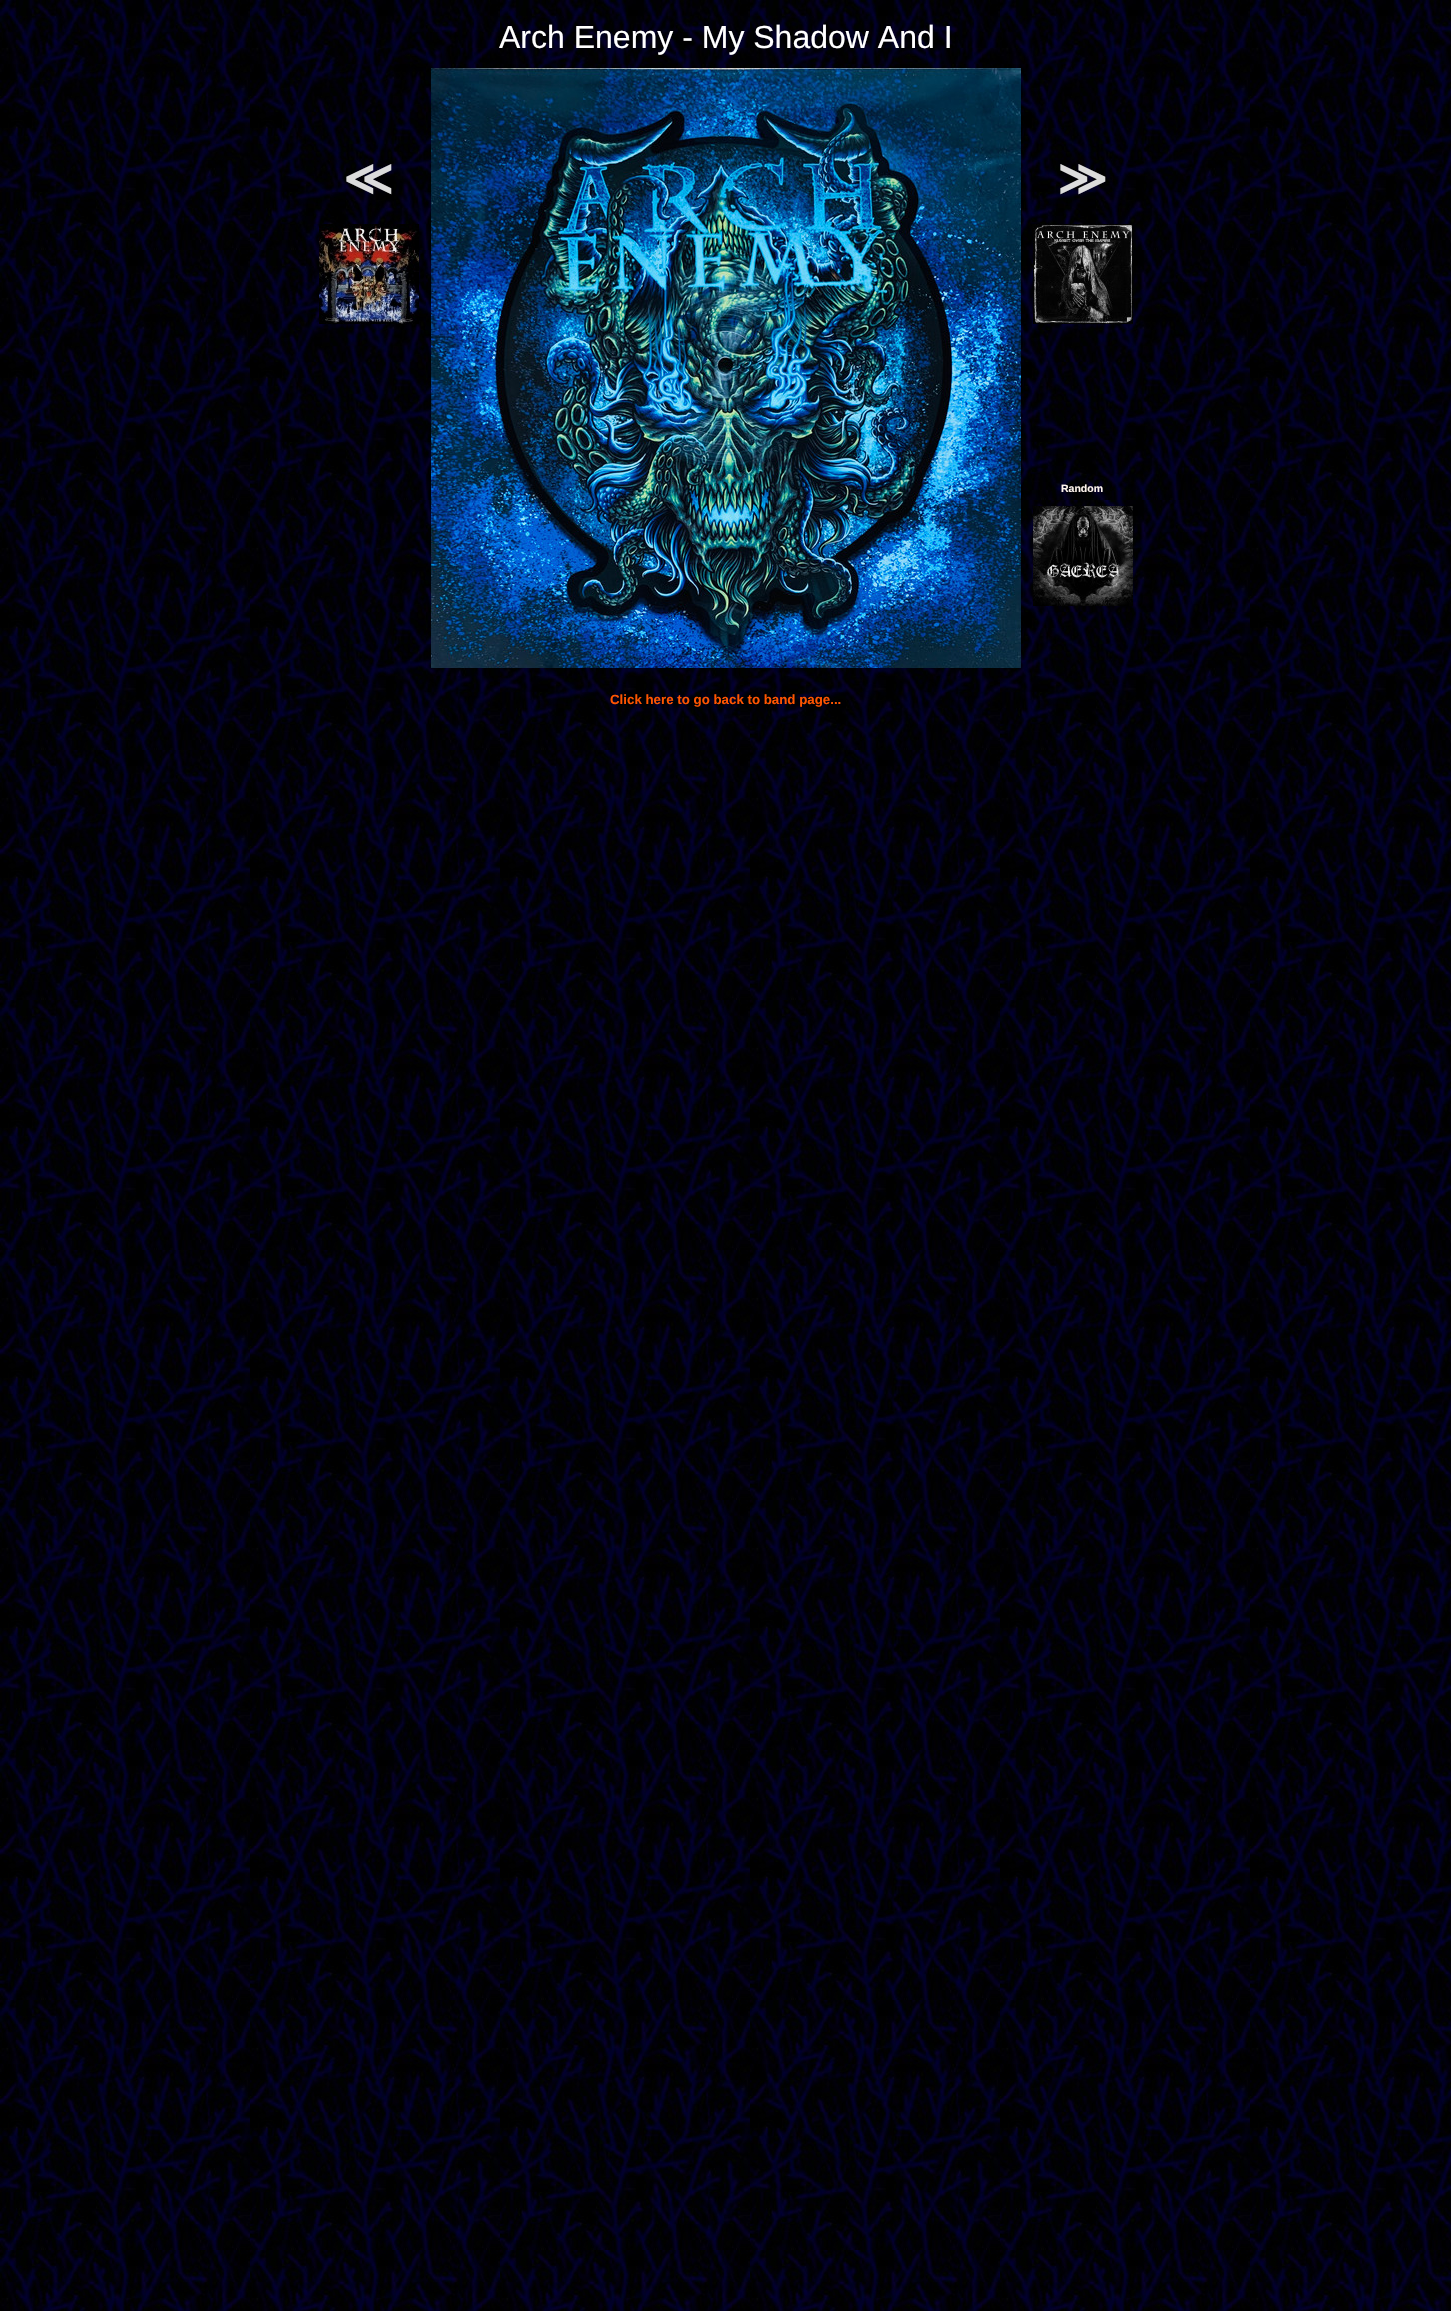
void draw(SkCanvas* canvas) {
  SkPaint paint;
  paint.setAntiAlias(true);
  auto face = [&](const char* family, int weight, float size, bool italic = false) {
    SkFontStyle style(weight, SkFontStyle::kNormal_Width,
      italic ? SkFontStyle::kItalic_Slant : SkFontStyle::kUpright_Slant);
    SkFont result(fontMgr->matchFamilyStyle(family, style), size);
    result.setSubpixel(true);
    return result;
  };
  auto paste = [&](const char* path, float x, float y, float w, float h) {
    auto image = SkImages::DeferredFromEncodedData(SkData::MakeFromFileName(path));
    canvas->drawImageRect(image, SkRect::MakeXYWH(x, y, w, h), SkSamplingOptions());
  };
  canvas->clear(0xffffffff);
  paste("img/1.png", 0, 0, 1451, 2311);
  paste("img/2.png", 319, 224, 100, 100);
  paste("img/3.png", 431, 68, 590, 600);
  paste("img/4.png", 1033, 224, 100, 100);
  paste("img/5.png", 1033, 506, 100, 100);
  auto f0 = face("Liberation Sans", 400, 32);
  paint.setColor(0xffffffff);
  canvas->drawString("Arch Enemy - My Shadow And I", 499, 48, f0, paint);
  auto f1 = face("DejaVu Sans", 700, 48);
  paint.setColor(0xffdcdcdc);
  canvas->drawString("≪", 343, 195, f1, paint);
  canvas->drawString("≫", 1057, 195, f1, paint);
  auto f2 = face("Liberation Sans", 700, 10.5f);
  paint.setColor(0xfffff5ee);
  canvas->drawString("Random", 1061, 492, f2, paint);
  auto f3 = face("Liberation Sans", 700, 13.3f);
  paint.setColor(0xffff5500);
  canvas->drawString("Click here to go back to band page...", 610, 704, f3, paint);
}
